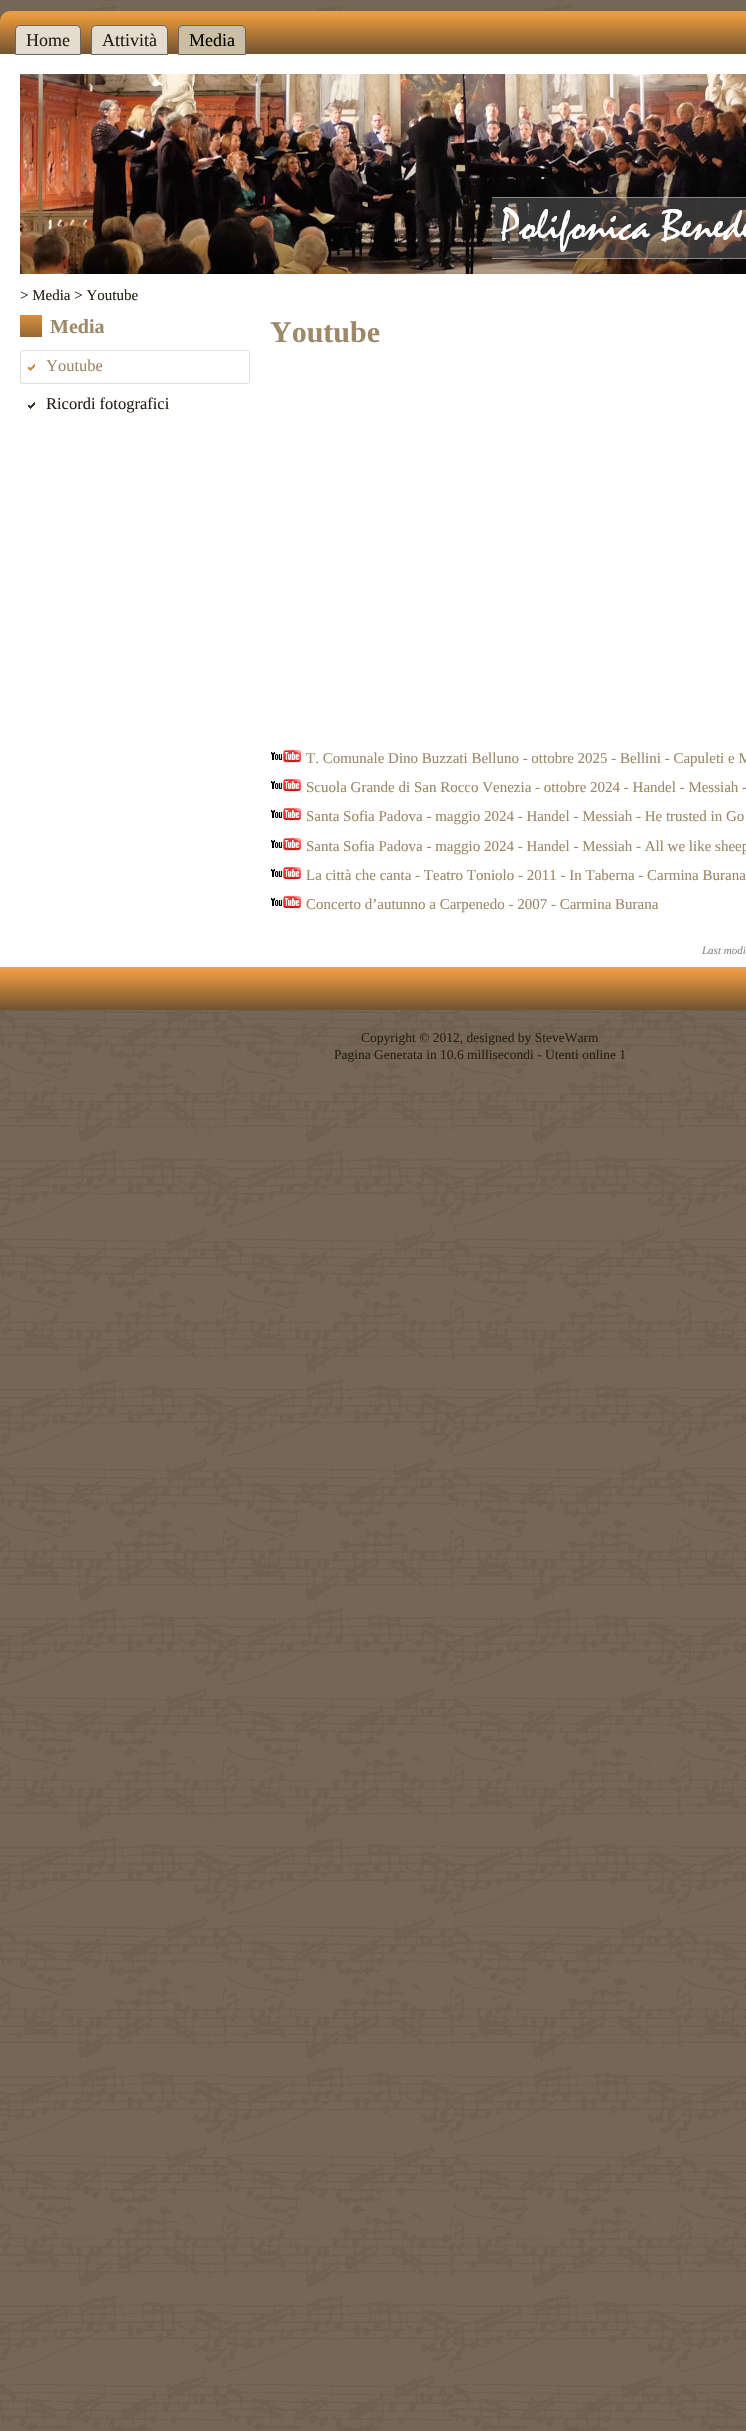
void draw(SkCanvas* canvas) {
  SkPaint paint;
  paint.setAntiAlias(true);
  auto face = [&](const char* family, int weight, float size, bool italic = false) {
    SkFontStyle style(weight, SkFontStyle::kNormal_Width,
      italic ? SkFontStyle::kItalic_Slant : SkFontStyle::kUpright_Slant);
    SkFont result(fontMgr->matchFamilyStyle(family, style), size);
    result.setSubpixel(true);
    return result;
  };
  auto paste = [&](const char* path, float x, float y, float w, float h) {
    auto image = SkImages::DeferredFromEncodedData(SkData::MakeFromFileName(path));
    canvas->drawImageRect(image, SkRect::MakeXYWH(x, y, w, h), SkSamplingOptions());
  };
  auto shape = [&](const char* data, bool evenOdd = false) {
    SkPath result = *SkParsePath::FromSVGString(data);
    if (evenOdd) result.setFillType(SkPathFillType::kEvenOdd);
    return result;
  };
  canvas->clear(0xffffffff);
  paste("img/1.png", 0, 0, 746, 2431);
  paste("img/2.png", 0, 11, 746, 43);
  paint.setColor(0xffffffff);
  canvas->drawRect(SkRect::MakeXYWH(0, 54, 746, 913), paint);
  paint.setColor(0xffe4dcce);
  canvas->drawPath(shape("M20 25.5H76C78.5 25.5 80.5 27.5 80.5 30V54.5H15.5V30C15.5 27.5 17.5 25.5 20 25.5Z"), paint);
  paint.setStroke(true);
  paint.setStrokeWidth(1);
  paint.setColor(0xff666666);
  canvas->drawPath(shape("M20 25.5H76C78.5 25.5 80.5 27.5 80.5 30V54.5H15.5V30C15.5 27.5 17.5 25.5 20 25.5Z"), paint);
  paint.setStroke(false);
  paint.setColor(0xffe4dcce);
  canvas->drawPath(shape("M96 25.5H163C165.5 25.5 167.5 27.5 167.5 30V54.5H91.5V30C91.5 27.5 93.5 25.5 96 25.5Z"), paint);
  paint.setStroke(true);
  paint.setColor(0xff666666);
  canvas->drawPath(shape("M96 25.5H163C165.5 25.5 167.5 27.5 167.5 30V54.5H91.5V30C91.5 27.5 93.5 25.5 96 25.5Z"), paint);
  paint.setStroke(false);
  paint.setColor(0xffccbea3);
  canvas->drawPath(shape("M183 25.5H241C243.5 25.5 245.5 27.5 245.5 30V54.5H178.5V30C178.5 27.5 180.5 25.5 183 25.5Z"), paint);
  paint.setStroke(true);
  paint.setColor(0xff666666);
  canvas->drawPath(shape("M183 25.5H241C243.5 25.5 245.5 27.5 245.5 30V54.5H178.5V30C178.5 27.5 180.5 25.5 183 25.5Z"), paint);
  paste("img/3.png", 20, 74, 726, 200);
  paste("img/4.png", 20, 315, 22, 22);
  paste("img/5.png", 28, 364, 7, 7);
  paint.setColor(0xffdddddd);
  canvas->drawRoundRect(SkRect::MakeXYWH(20.5f, 350.5f, 229, 33), 2.5f, 2.5f, paint);
  paste("img/6.png", 28, 402, 7, 7);
  paste("img/7.png", 270, 749, 32, 14);
  paste("img/7.png", 270, 778, 32, 14);
  paste("img/7.png", 270, 807, 32, 14);
  paste("img/7.png", 270, 837, 32, 14);
  paste("img/7.png", 270, 866, 32, 14);
  paste("img/7.png", 270, 895, 32, 14);
  paste("img/8.png", 0, 967, 746, 43);
  auto f0 = face("Liberation Serif", 400, 18);
  paint.setStroke(false);
  paint.setColor(0xff272116);
  canvas->drawString("Home", 26, 46, f0, paint);
  canvas->drawString("Attività", 102, 46, f0, paint);
  paint.setColor(0xff000000);
  canvas->drawString("Media", 189, 46, f0, paint);
  auto f1 = face("Liberation Serif", 400, 15);
  paint.setColor(0xff272116);
  canvas->drawString("> Media > Youtube", 20, 300, f1, paint);
  auto f2 = face("Liberation Serif", 700, 20);
  paint.setColor(0xff9d8867);
  canvas->drawString("Media", 50, 333, f2, paint);
  auto f3 = face("Liberation Serif", 400, 16.5f);
  canvas->drawString("Youtube", 46, 371, f3, paint);
  paint.setColor(0xff272116);
  canvas->drawString("Ricordi fotografici", 46, 409, f3, paint);
  auto f4 = face("Liberation Serif", 700, 30);
  paint.setColor(0xff9d8867);
  canvas->drawString("Youtube", 270, 342, f4, paint);
  {
    const struct { const char* s; float x, y; } items[] = {
      {"T. Comunale Dino Buzzati Belluno - ottobre 2025 - Bellini - Capuleti e M", 306, 763},
      {"Scuola Grande di San Rocco Venezia - ottobre 2024 - Handel - Messiah -", 306, 792},
      {"Santa Sofia Padova - maggio 2024 - Handel - Messiah - He trusted in Go", 306, 821},
      {"Santa Sofia Padova - maggio 2024 - Handel - Messiah - All we like sheep", 306, 851},
      {"La città che canta - Teatro Toniolo - 2011 - In Taberna - Carmina Burana", 306, 880},
      {"Concerto d’autunno a Carpenedo - 2007 - Carmina Burana", 306, 909},
    };
    for (auto [s, x, y] : items) {
      canvas->drawString(s, x, y, f1, paint);
    }
  }
  auto f5 = face("Liberation Serif", 400, 11, true);
  paint.setColor(0xff888888);
  canvas->drawString("Last modi", 702, 954, f5, paint);
  auto f6 = face("Liberation Serif", 400, 13.5f);
  paint.setColor(0xff272116);
  canvas->drawString("Copyright © 2012, designed by SteveWarm", 361, 1042, f6, paint);
  canvas->drawString("Pagina Generata in 10.6 millisecondi - Utenti online 1", 334, 1059, f6, paint);
}
